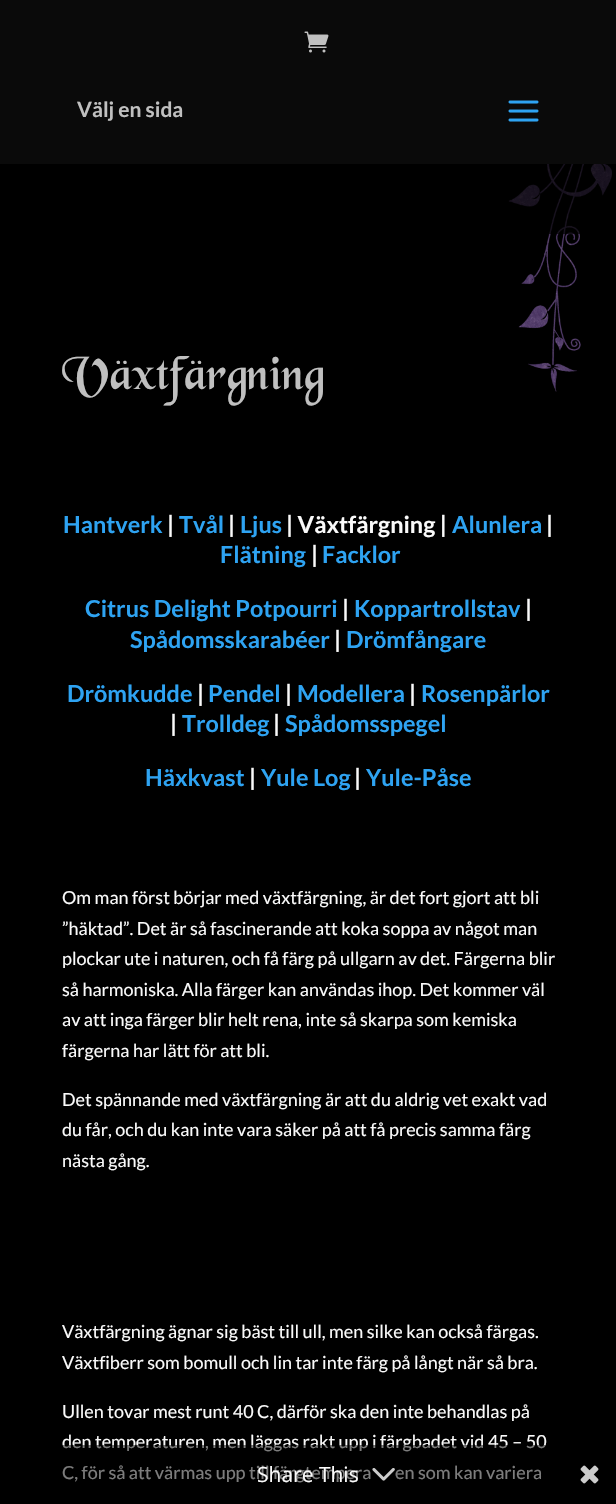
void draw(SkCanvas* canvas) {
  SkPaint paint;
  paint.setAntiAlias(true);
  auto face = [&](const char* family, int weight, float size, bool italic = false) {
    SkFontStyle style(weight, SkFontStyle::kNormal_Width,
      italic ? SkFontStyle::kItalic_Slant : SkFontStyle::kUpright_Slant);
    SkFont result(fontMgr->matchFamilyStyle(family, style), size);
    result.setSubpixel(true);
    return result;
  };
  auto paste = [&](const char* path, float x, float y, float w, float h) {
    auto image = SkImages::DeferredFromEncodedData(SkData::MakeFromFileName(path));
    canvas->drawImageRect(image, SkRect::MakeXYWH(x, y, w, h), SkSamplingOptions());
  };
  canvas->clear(0xff000000);
  paste("img/1.png", 508, 164, 104, 228);
  paint.setColor(0xff0a0a0a);
  canvas->drawRect(SkRect::MakeXYWH(0, 0, 616, 164), paint);
  paste("img/2.png", 304, 31, 25, 22);
  paste("img/3.png", 508, 100, 31, 22);
  paint.setColor(0xb3000000);
  canvas->drawRect(SkRect::MakeXYWH(508, 164, 104, 70), paint);
  paste("img/5.png", 580, 1465, 19, 19);
  auto f0 = face("Lato", 700, 21);
  paint.setColor(0xffc0c0c0);
  canvas->drawString("Välj en sida", 77, 117, f0, paint);
  auto f1 = face("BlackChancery", 900, 49.5f);
  canvas->drawString("Växtfärgning", 62, 389, f1, paint);
  auto f2 = face("Lato", 700, 23.4f);
  paint.setColor(0xff2ea3f2);
  canvas->drawString("Hantverk", 63, 533, f2, paint);
  paint.setColor(0xfffafafa);
  canvas->drawString("|", 167, 533, f2, paint);
  paint.setColor(0xff2ea3f2);
  canvas->drawString("Tvål", 179, 533, f2, paint);
  paint.setColor(0xfffafafa);
  canvas->drawString("|", 228, 533, f2, paint);
  paint.setColor(0xff2ea3f2);
  canvas->drawString("Ljus", 240, 533, f2, paint);
  paint.setColor(0xfffafafa);
  canvas->drawString("| Växtfärgning |", 286, 533, f2, paint);
  paint.setColor(0xff2ea3f2);
  canvas->drawString("Alunlera", 452, 533, f2, paint);
  paint.setColor(0xfffafafa);
  canvas->drawString("|", 546, 533, f2, paint);
  paint.setColor(0xff2ea3f2);
  canvas->drawString("Flätning", 220, 563, f2, paint);
  paint.setColor(0xfffafafa);
  canvas->drawString("|", 311, 563, f2, paint);
  paint.setColor(0xff2ea3f2);
  canvas->drawString("Facklor", 322, 563, f2, paint);
  canvas->drawString("Citrus Delight Potpourri", 85, 617, f2, paint);
  paint.setColor(0xfffafafa);
  canvas->drawString("|", 342, 617, f2, paint);
  paint.setColor(0xff2ea3f2);
  canvas->drawString("Koppartrollstav", 354, 617, f2, paint);
  paint.setColor(0xfffafafa);
  canvas->drawString("|", 525, 617, f2, paint);
  paint.setColor(0xff2ea3f2);
  canvas->drawString("Spådomsskarabéer", 130, 648, f2, paint);
  paint.setColor(0xfffafafa);
  canvas->drawString("|", 334, 648, f2, paint);
  paint.setColor(0xff2ea3f2);
  canvas->drawString("Drömfångare", 346, 648, f2, paint);
  canvas->drawString("Drömkudde", 67, 702, f2, paint);
  paint.setColor(0xfffafafa);
  canvas->drawString("|", 197, 702, f2, paint);
  paint.setColor(0xff2ea3f2);
  canvas->drawString("Pendel", 208, 702, f2, paint);
  paint.setColor(0xfffafafa);
  canvas->drawString("|", 285, 702, f2, paint);
  paint.setColor(0xff2ea3f2);
  canvas->drawString("Modellera", 297, 702, f2, paint);
  paint.setColor(0xfffafafa);
  canvas->drawString("|", 409, 702, f2, paint);
  paint.setColor(0xff2ea3f2);
  canvas->drawString("Rosenpärlor", 421, 702, f2, paint);
  paint.setColor(0xfffafafa);
  canvas->drawString("|", 170, 732, f2, paint);
  paint.setColor(0xff2ea3f2);
  canvas->drawString("Trolldeg", 182, 732, f2, paint);
  paint.setColor(0xfffafafa);
  canvas->drawString("|", 273, 732, f2, paint);
  paint.setColor(0xff2ea3f2);
  canvas->drawString("Spådomsspegel", 285, 732, f2, paint);
  canvas->drawString("Häxkvast", 145, 786, f2, paint);
  paint.setColor(0xfffafafa);
  canvas->drawString("|", 249, 786, f2, paint);
  paint.setColor(0xff2ea3f2);
  canvas->drawString("Yule Log", 261, 786, f2, paint);
  paint.setColor(0xfffafafa);
  canvas->drawString("|", 354, 786, f2, paint);
  paint.setColor(0xff2ea3f2);
  canvas->drawString("Yule-Påse", 366, 786, f2, paint);
  auto f3 = face("Lato", 400, 18);
  paint.setColor(0xfffafafa);
  {
    const struct { const char* s; float x, y; } items[] = {
      {"Om man först börjar med växtfärgning, är det fort gjort att bli", 62, 904},
      {"”häktad”. Det är så fascinerande att koka soppa av något man", 62, 935},
      {"plockar ute i naturen, och få färg på ullgarn av det. Färgerna blir", 62, 965},
      {"så harmoniska. Alla färger kan användas ihop. Det kommer väl", 62, 996},
      {"av att inga färger blir helt rena, inte så skarpa som kemiska", 62, 1026},
      {"färgerna har lätt för att bli.", 62, 1057},
      {"Det spännande med växtfärgning är att du aldrig vet exakt vad", 62, 1106},
      {"du får, och du kan inte vara säker på att få precis samma färg", 62, 1136},
      {"nästa gång.", 62, 1167},
      {"Växtfärgning ägnar sig bäst till ull, men silke kan också färgas.", 62, 1338},
      {"Växtfiberr som bomull och lin tar inte färg på långt när så bra.", 62, 1369},
      {"Ullen tovar mest runt 40 C, därför ska den inte behandlas på", 62, 1418},
      {"den temperaturen, men läggas rakt upp i färgbadet vid 45 – 50", 62, 1448},
      {"C, för så att värmas upp till färgtempera", 62, 1479},
      {"en som kan variera", 395, 1479},
    };
    for (auto [s, x, y] : items) {
      canvas->drawString(s, x, y, f3, paint);
    }
  }
  paint.setColor(0x80000000);
  canvas->drawRect(SkRect::MakeXYWH(62, 1445, 484, 38), paint);
  auto f4 = face("Open Sans", 400, 21);
  paint.setColor(0xfffafafa);
  canvas->drawString("Share This", 257, 1482, f4, paint);
  paste("img/4.png", 372, 1468, 23, 13);
}
